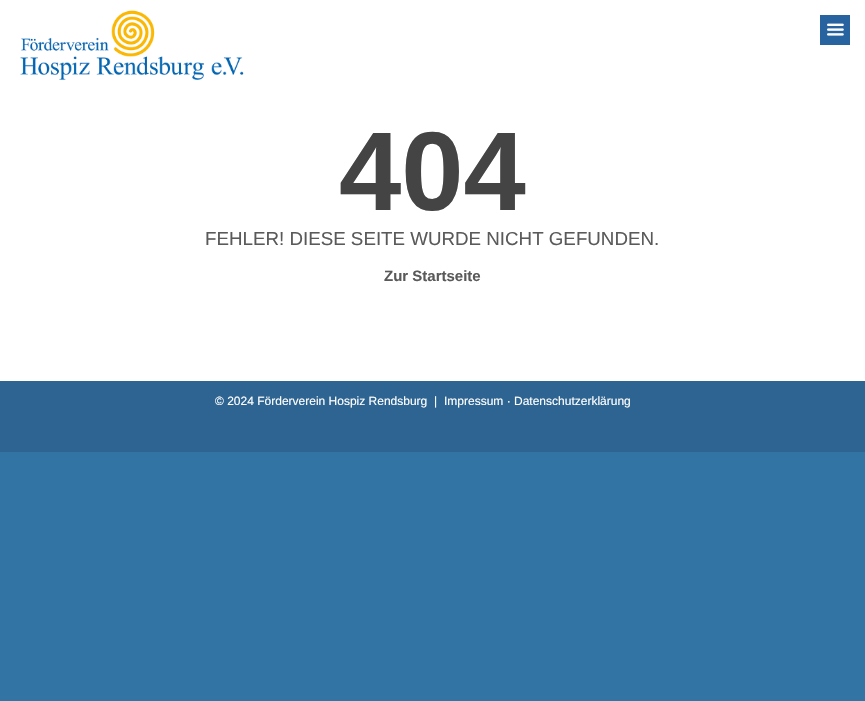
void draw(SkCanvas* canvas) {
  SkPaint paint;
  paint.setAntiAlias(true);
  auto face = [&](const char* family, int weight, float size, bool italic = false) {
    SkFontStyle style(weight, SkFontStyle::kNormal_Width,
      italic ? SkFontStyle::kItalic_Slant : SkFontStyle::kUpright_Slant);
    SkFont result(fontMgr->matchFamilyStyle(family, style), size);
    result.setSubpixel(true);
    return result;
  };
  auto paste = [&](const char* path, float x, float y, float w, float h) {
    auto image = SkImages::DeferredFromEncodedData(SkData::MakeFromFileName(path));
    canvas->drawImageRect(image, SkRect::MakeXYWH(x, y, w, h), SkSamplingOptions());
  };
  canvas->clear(0xff3274a3);
  paint.setColor(0xffffffff);
  canvas->drawRect(SkRect::MakeXYWH(0, 0, 865, 381), paint);
  paste("img/1.png", 20, 10, 224, 70);
  paint.setColor(0xff26639f);
  canvas->drawRect(SkRect::MakeXYWH(820, 15, 30, 30), paint);
  paste("img/2.png", 827, 23, 17, 13);
  paint.setColor(0xff2e6491);
  canvas->drawRect(SkRect::MakeXYWH(0, 381, 865, 71), paint);
  auto f0 = face("Liberation Sans", 700, 112);
  paint.setColor(0xff444444);
  canvas->drawString("404", 339, 210, f0, paint);
  auto f1 = face("Liberation Sans", 400, 18.75f);
  paint.setColor(0xff5a5a5a);
  canvas->drawString("FEHLER! DIESE SEITE WURDE NICHT GEFUNDEN.", 205, 245, f1, paint);
  auto f2 = face("Liberation Sans", 700, 15);
  canvas->drawString("Zur Startseite", 384, 281, f2, paint);
  auto f3 = face("Liberation Sans", 400, 12);
  paint.setColor(0xffffffff);
  canvas->drawString("© 2024 Förderverein Hospiz Rendsburg  |", 215, 405, f3, paint);
  canvas->drawString("Impressum · Datenschutzerklärung", 444, 405, f3, paint);
}
